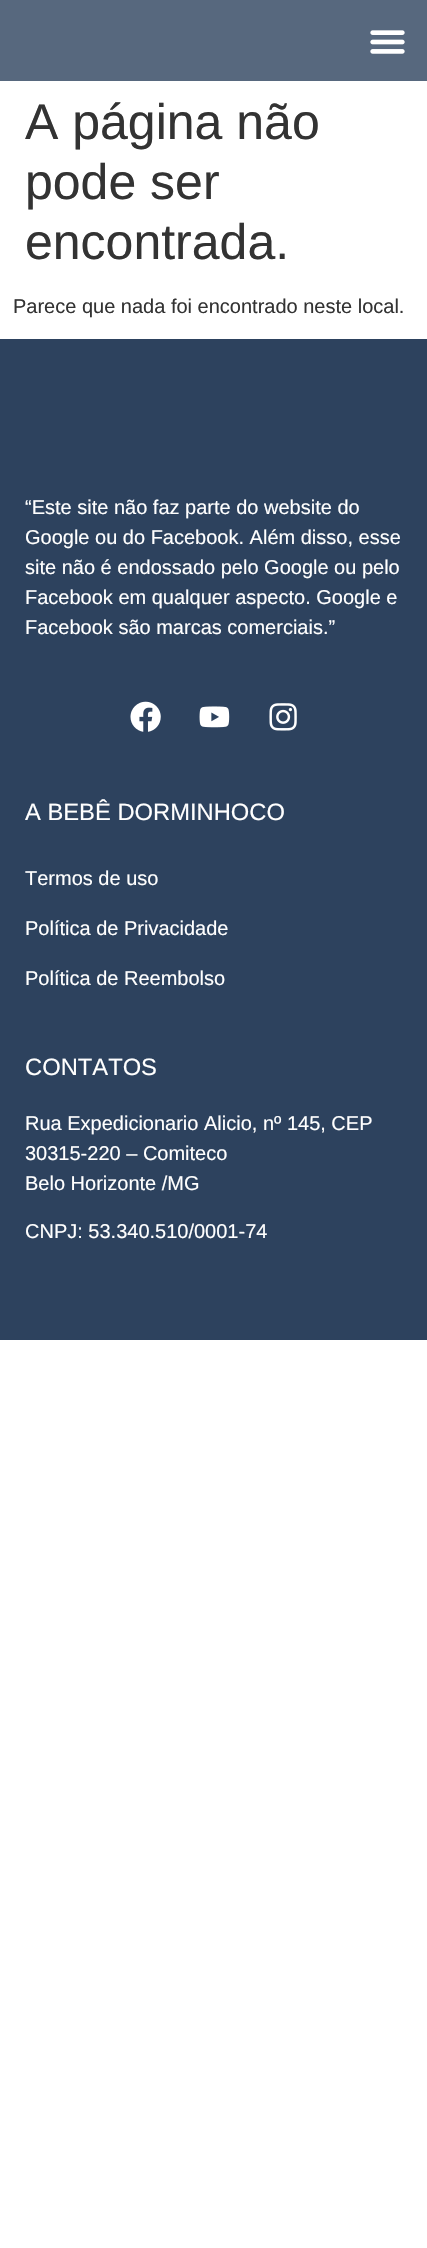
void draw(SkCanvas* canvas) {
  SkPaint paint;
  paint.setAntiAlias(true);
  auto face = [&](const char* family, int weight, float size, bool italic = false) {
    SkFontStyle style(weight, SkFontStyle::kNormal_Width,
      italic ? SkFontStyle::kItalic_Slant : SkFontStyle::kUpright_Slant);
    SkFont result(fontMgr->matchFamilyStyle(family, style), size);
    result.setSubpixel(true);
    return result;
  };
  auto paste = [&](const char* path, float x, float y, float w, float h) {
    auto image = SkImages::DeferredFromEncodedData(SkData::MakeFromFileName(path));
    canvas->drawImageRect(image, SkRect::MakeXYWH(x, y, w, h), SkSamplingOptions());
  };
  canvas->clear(0xffffffff);
  paint.setColor(0xff57687e);
  canvas->drawRect(SkRect::MakeXYWH(0, 0, 427, 81), paint);
  paste("img/1.png", 370, 30, 35, 24);
  paint.setColor(0xff2d425e);
  canvas->drawRect(SkRect::MakeXYWH(0, 339, 427, 1001), paint);
  paste("img/2.png", 130, 701, 31, 31);
  paste("img/3.png", 199, 706, 31, 22);
  paste("img/4.png", 269, 703, 28, 28);
  auto f0 = face("Liberation Sans", 400, 50);
  paint.setColor(0xff333333);
  {
    const struct { const char* s; float x, y; } items[] = {
      {"A página não", 25, 139},
      {"pode ser", 25, 199},
      {"encontrada.", 25, 259},
    };
    for (auto [s, x, y] : items) {
      canvas->drawString(s, x, y, f0, paint);
    }
  }
  auto f1 = face("Liberation Sans", 400, 20);
  canvas->drawString("Parece que nada foi encontrado neste local.", 13, 313, f1, paint);
  paint.setColor(0xffffffff);
  {
    const struct { const char* s; float x, y; } items[] = {
      {"“Este site não faz parte do website do", 25, 514},
      {"Google ou do Facebook. Além disso, esse", 25, 544},
      {"site não é endossado pelo Google ou pelo", 25, 574},
      {"Facebook em qualquer aspecto. Google e", 25, 604},
      {"Facebook são marcas comerciais.”", 25, 634},
    };
    for (auto [s, x, y] : items) {
      canvas->drawString(s, x, y, f1, paint);
    }
  }
  auto f2 = face("Liberation Sans", 400, 23.75f);
  canvas->drawString("A BEBÊ DORMINHOCO", 25, 820, f2, paint);
  {
    const struct { const char* s; float x, y; } items[] = {
      {"Termos de uso", 25, 885},
      {"Política de Privacidade", 25, 935},
      {"Política de Reembolso", 25, 985},
    };
    for (auto [s, x, y] : items) {
      canvas->drawString(s, x, y, f1, paint);
    }
  }
  canvas->drawString("CONTATOS", 25, 1075, f2, paint);
  {
    const struct { const char* s; float x, y; } items[] = {
      {"Rua Expedicionario Alicio, nº 145, CEP", 25, 1130},
      {"30315-220 – Comiteco", 25, 1160},
      {"Belo Horizonte /MG", 25, 1190},
      {"CNPJ: 53.340.510/0001-74", 25, 1238},
    };
    for (auto [s, x, y] : items) {
      canvas->drawString(s, x, y, f1, paint);
    }
  }
}
